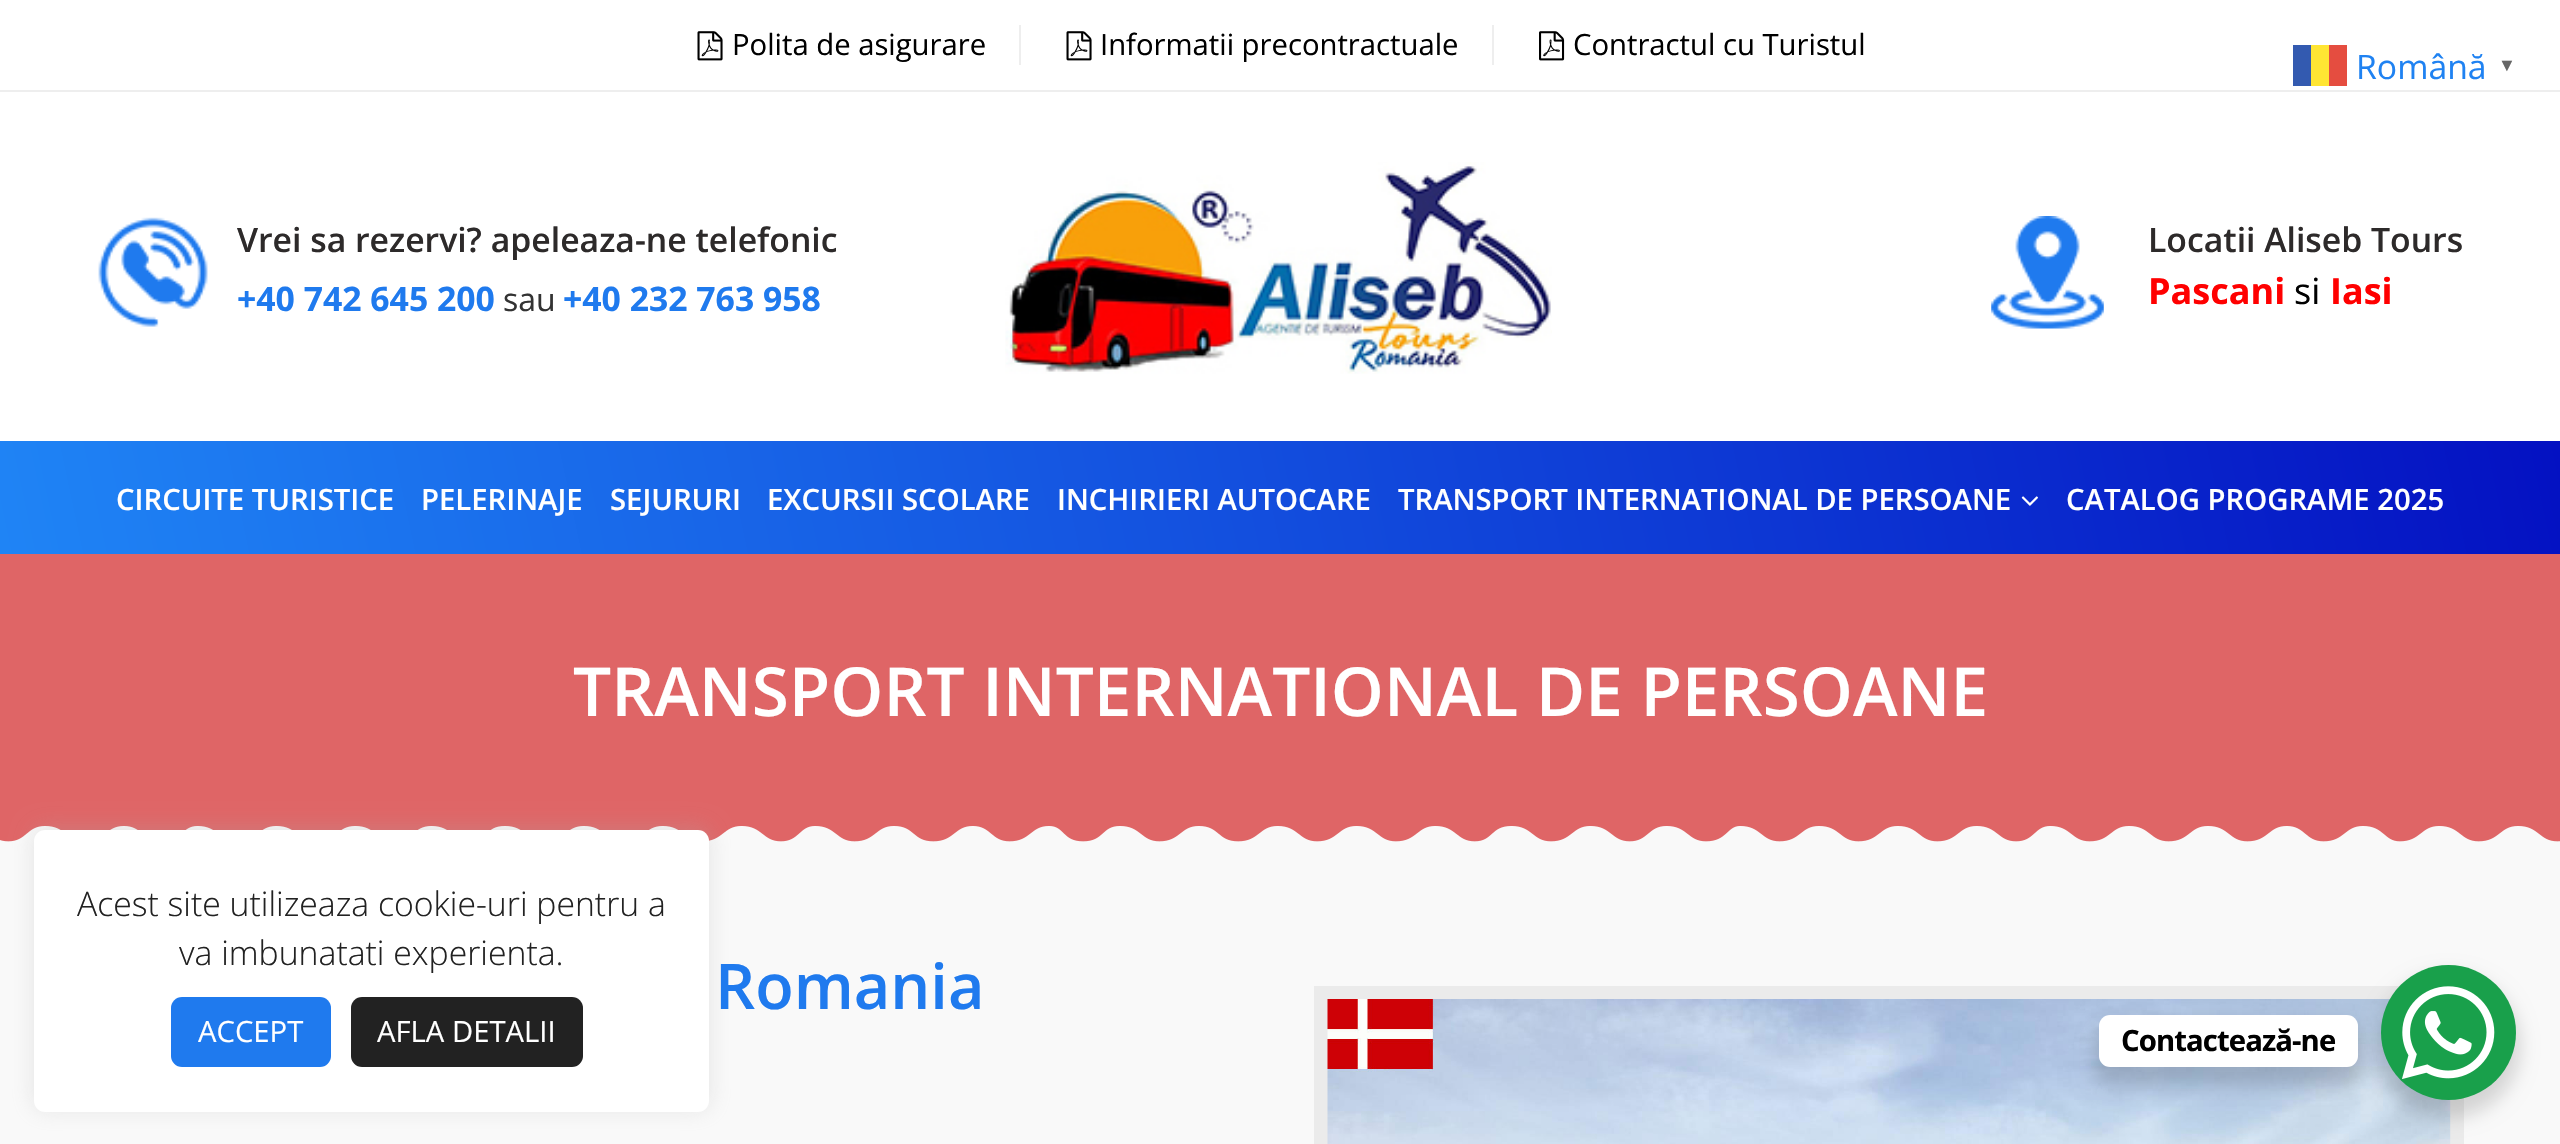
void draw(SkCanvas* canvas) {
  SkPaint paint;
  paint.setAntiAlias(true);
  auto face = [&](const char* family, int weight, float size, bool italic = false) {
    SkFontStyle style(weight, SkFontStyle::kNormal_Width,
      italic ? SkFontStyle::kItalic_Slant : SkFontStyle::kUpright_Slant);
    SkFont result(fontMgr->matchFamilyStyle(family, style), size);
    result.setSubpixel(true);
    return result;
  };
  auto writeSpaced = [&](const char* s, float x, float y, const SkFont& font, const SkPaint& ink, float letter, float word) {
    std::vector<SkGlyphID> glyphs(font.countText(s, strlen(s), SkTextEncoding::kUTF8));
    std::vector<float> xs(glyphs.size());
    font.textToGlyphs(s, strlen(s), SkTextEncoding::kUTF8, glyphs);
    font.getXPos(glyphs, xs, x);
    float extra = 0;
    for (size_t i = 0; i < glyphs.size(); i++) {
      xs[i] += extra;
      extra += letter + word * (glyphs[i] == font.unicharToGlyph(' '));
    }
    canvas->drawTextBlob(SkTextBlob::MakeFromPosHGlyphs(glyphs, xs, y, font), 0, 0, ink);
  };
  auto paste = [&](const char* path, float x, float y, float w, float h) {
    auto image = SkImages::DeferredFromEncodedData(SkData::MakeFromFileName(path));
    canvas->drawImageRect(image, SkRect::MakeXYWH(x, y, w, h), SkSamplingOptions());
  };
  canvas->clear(0xffffffff);
  paint.setColor(0xffeeeeee);
  canvas->drawRect(SkRect::MakeXYWH(0, 90, 2560, 2), paint);
  canvas->drawRect(SkRect::MakeXYWH(1019, 25, 2, 40), paint);
  paste("img/1.png", 697, 31, 26, 30);
  canvas->drawRect(SkRect::MakeXYWH(1492, 25, 2, 40), paint);
  paste("img/1.png", 1066, 31, 26, 30);
  paste("img/2.png", 1539, 31, 26, 30);
  paste("img/3.png", 98, 217, 110, 110);
  paste("img/4.png", 1005, 162, 547, 212);
  paste("img/5.png", 1991, 216, 113, 113);
  {
    const SkColor colors[] = {0xff1f84f5, 0xff1453e0, 0xff0411c2};
    const float stops[] = {0, 0.45f, 1};
    const SkPoint ends[] = {{44, 760}, {2517, 234}};
    paint.setShader(SkGradientShader::MakeLinear(ends, colors, stops, 3, SkTileMode::kClamp));
    paint.setAlpha(255);
  }
  canvas->drawRect(SkRect::MakeXYWH(0, 441, 2560, 113), paint);
  paste("img/6.png", 2021, 496, 17, 10);
  paint.setShader(nullptr);
  paint.setColor(0xfff9f9f9);
  canvas->drawRect(SkRect::MakeXYWH(0, 806, 2560, 338), paint);
  paint.setColor(0xffdf6566);
  canvas->drawRect(SkRect::MakeXYWH(0, 554, 2560, 252), paint);
  paste("img/7.png", 0, 806, 2560, 36);
  paint.setColor(0xffebebeb);
  canvas->drawRect(SkRect::MakeXYWH(1314, 986, 1150, 158), paint);
  paste("img/8.png", 1327, 999, 1124, 145);
  {
    const struct { float x, y, w, h; SkColor color; } items[] = {
      {2293, 45, 18, 41, 0xff335ab0},
      {2311, 45, 18, 41, 0xffffe533},
      {2329, 45, 18, 41, 0xffe54d40},
    };
    for (auto [x, y, w, h, color] : items) {
      paint.setColor(color);
      canvas->drawRect(SkRect::MakeXYWH(x, y, w, h), paint);
    }
  }
  paint.setColor(0x4dacabab);
  paint.setMaskFilter(SkMaskFilter::MakeBlur(kNormal_SkBlurStyle, 11));
  canvas->drawRoundRect(SkRect::MakeXYWH(34, 828, 675, 281), 11, 11, paint);
  paint.setMaskFilter(nullptr);
  paint.setColor(0xffffffff);
  canvas->drawRoundRect(SkRect::MakeXYWH(34, 830, 675, 282), 11, 11, paint);
  paint.setColor(0xff1f7aee);
  canvas->drawRoundRect(SkRect::MakeXYWH(171, 997, 160, 70), 11, 11, paint);
  paint.setColor(0xff222222);
  canvas->drawRoundRect(SkRect::MakeXYWH(351, 997, 232, 70), 11, 11, paint);
  paint.setColor(0x26000000);
  paint.setMaskFilter(SkMaskFilter::MakeBlur(kNormal_SkBlurStyle, 9));
  canvas->drawRoundRect(SkRect::MakeXYWH(2376, 974, 144, 144), 72, 72, paint);
  paint.setMaskFilter(nullptr);
  paint.setColor(0xff19a04b);
  canvas->drawCircle(2448.5f, 1032.5f, 67.5f, paint);
  paint.setColor(0x26000000);
  paint.setMaskFilter(SkMaskFilter::MakeBlur(kNormal_SkBlurStyle, 9));
  canvas->drawRoundRect(SkRect::MakeXYWH(2095, 1024, 268, 61), 16, 16, paint);
  paint.setMaskFilter(nullptr);
  paint.setColor(0xffffffff);
  canvas->drawRoundRect(SkRect::MakeXYWH(2099, 1015, 259, 52), 11, 11, paint);
  paste("img/9.png", 2402, 986, 93, 93);
  auto f0 = face("Open Sans", 400, 29.25f);
  paint.setColor(0xff000000);
  {
    const struct { const char* s; float x, y; } items[] = {
      {"Polita de asigurare", 732, 55},
      {"Informatii precontractuale", 1100, 55},
      {"Contractul cu Turistul", 1573, 55},
    };
    for (auto [s, x, y] : items) {
      canvas->drawString(s, x, y, f0, paint);
    }
  }
  auto f1 = face("Open Sans", 600, 33.75f);
  paint.setColor(0xff2d2a2a);
  canvas->drawString("Vrei sa rezervi? apeleaza-ne telefonic", 237, 252, f1, paint);
  auto f2 = face("Open Sans", 700, 33.75f);
  paint.setColor(0xff1f7aee);
  canvas->drawString("+40 742 645 200", 237, 311, f2, paint);
  auto f3 = face("Open Sans", 400, 32);
  paint.setColor(0xff333333);
  canvas->drawString("sau", 503, 311, f3, paint);
  paint.setColor(0xff1f7aee);
  canvas->drawString("+40 232 763 958", 563, 311, f2, paint);
  paint.setColor(0xff2d2a2a);
  canvas->drawString("Locatii Aliseb Tours", 2148, 252, f1, paint);
  auto f4 = face("Open Sans", 700, 36);
  paint.setColor(0xffff0000);
  canvas->drawString("Pascani", 2148, 304, f4, paint);
  auto f5 = face("Open Sans", 400, 36);
  paint.setColor(0xff000000);
  canvas->drawString("si", 2294, 304, f5, paint);
  paint.setColor(0xffff0000);
  canvas->drawString("Iasi", 2330, 304, f4, paint);
  auto f6 = face("Open Sans", 600, 29.25f);
  paint.setColor(0xffffffff);
  {
    const struct { const char* s; float x, y; } items[] = {
      {"CIRCUITE TURISTICE", 116, 510},
      {"PELERINAJE", 421, 510},
      {"SEJURURI", 610, 510},
      {"EXCURSII SCOLARE", 767, 510},
      {"INCHIRIERI AUTOCARE", 1057, 510},
      {"TRANSPORT INTERNATIONAL DE PERSOANE", 1398, 510},
      {"CATALOG PROGRAME 2025", 2066, 510},
    };
    for (auto [s, x, y] : items) {
      canvas->drawString(s, x, y, f6, paint);
    }
  }
  auto f7 = face("Open Sans", 600, 67.5f);
  canvas->drawString("TRANSPORT INTERNATIONAL DE PERSOANE", 573, 716, f7, paint);
  auto f8 = face("Open Sans", 600, 63);
  paint.setColor(0xff1f7aee);
  canvas->drawString("Romania", 715, 1009, f8, paint);
  auto f9 = face("Open Sans", 400, 33.75f);
  paint.setColor(0xff1f82f2);
  canvas->drawString("Română", 2356, 79, f9, paint);
  auto f10 = face("Liberation Sans", 700, 18);
  paint.setColor(0xff666666);
  canvas->drawString("▼", 2498, 71, f10, paint);
  auto f11 = face("Open Sans", 300, 33.75f);
  paint.setColor(0xff222222);
  canvas->drawString("Acest site utilizeaza cookie-uri pentru a", 77, 916, f11, paint);
  canvas->drawString("va imbunatati experienta.", 179, 965, f11, paint);
  paint.setColor(0xffffffff);
  canvas->drawString("ACCEPT", 198, 1042, f0, paint);
  canvas->drawString("AFLA DETALII", 377, 1042, f0, paint);
  auto f12 = face("Open Sans", 700, 29.25f);
  paint.setColor(0xff000000);
  writeSpaced("Contactează-ne", 2121, 1051, f12, paint, -0.9f, 0);
}
